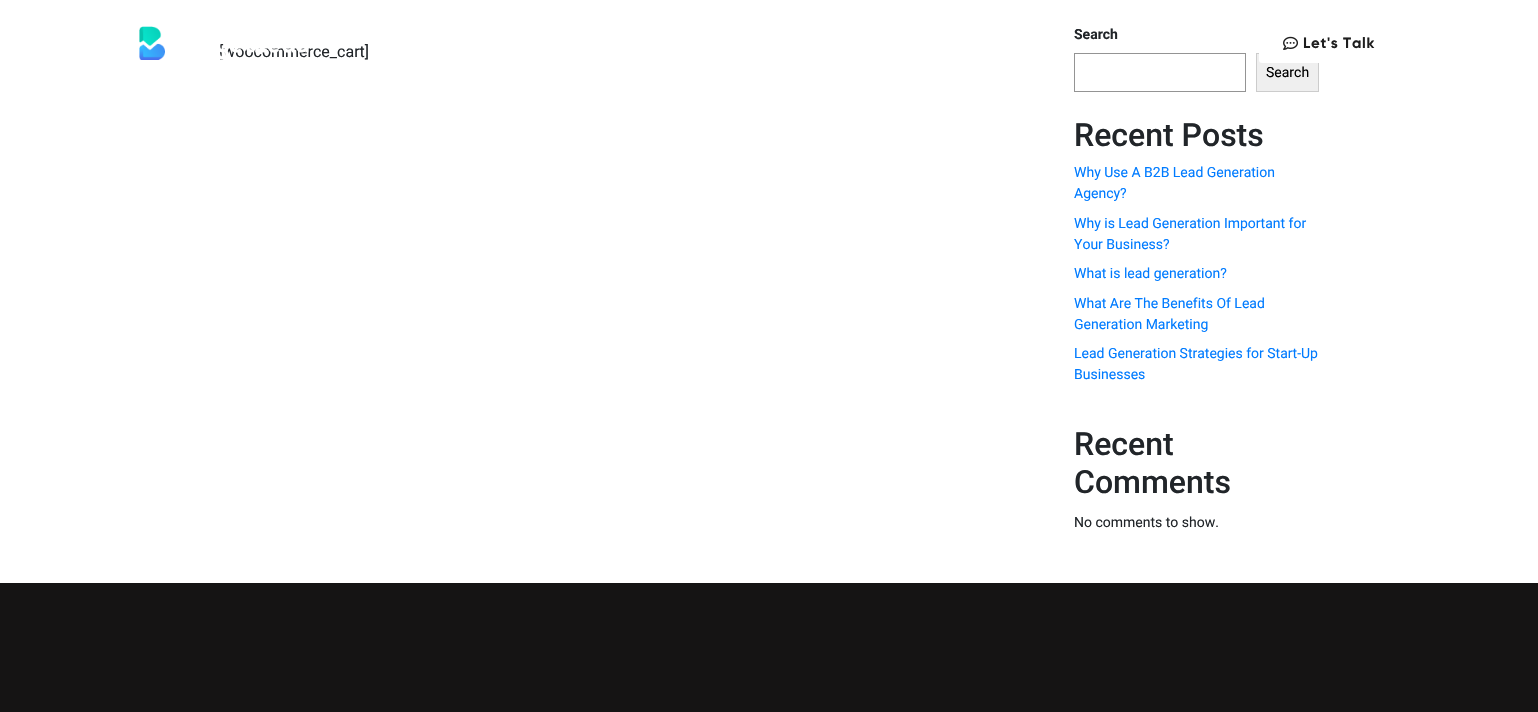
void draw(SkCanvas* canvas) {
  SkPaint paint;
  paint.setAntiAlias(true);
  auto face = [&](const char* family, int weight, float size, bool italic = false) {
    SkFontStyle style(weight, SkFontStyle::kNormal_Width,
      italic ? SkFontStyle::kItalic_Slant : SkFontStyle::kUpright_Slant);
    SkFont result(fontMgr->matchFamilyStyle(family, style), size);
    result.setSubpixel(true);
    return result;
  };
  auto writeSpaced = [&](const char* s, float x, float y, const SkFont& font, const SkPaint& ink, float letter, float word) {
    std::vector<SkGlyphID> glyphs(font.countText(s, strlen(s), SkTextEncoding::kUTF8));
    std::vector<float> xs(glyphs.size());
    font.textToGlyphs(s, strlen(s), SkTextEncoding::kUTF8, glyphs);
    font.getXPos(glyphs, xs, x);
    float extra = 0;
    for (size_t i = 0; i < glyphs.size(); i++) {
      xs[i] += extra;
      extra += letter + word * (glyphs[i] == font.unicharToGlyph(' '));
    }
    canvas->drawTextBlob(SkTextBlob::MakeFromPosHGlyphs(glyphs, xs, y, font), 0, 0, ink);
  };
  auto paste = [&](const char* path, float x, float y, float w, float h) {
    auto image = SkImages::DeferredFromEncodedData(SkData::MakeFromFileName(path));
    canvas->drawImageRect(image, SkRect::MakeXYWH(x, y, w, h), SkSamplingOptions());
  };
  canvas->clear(0xffffffff);
  paint.setStroke(true);
  paint.setStrokeWidth(1);
  paint.setColor(0xff949494);
  canvas->drawRect(SkRect::MakeXYWH(1074.5f, 53.5f, 171, 38), paint);
  paint.setStroke(false);
  paint.setColor(0xffefefef);
  canvas->drawRect(SkRect::MakeXYWH(1256.5f, 53.5f, 62, 38), paint);
  paint.setStroke(true);
  paint.setColor(0xffcccccc);
  canvas->drawRect(SkRect::MakeXYWH(1256.5f, 53.5f, 62, 38), paint);
  paint.setStroke(false);
  paint.setColor(0xffffffff);
  canvas->drawRoundRect(SkRect::MakeXYWH(1259, 24, 140, 39), 3, 3, paint);
  paste("img/2.png", 1283, 36, 15, 14);
  paint.setColor(0xff151414);
  canvas->drawRect(SkRect::MakeXYWH(0, 583, 1538, 129), paint);
  auto f0 = face("Roboto", 400, 16);
  paint.setColor(0xff212529);
  canvas->drawString("[woocommerce_cart]", 219, 57, f0, paint);
  auto f1 = face("Roboto", 700, 14);
  canvas->drawString("Search", 1074, 39, f1, paint);
  auto f2 = face("Roboto", 400, 14);
  paint.setColor(0xff000000);
  canvas->drawString("Search", 1266, 77, f2, paint);
  auto f3 = face("Roboto", 500, 32);
  paint.setColor(0xff212529);
  canvas->drawString("Recent Posts", 1074, 146, f3, paint);
  paint.setColor(0xff007bff);
  {
    const struct { const char* s; float x, y; } items[] = {
      {"Why Use A B2B Lead Generation", 1074, 177},
      {"Agency?", 1074, 198},
      {"Why is Lead Generation Important for", 1074, 228},
      {"Your Business?", 1074, 249},
      {"What is lead generation?", 1074, 278},
      {"What Are The Benefits Of Lead", 1074, 308},
      {"Generation Marketing", 1074, 329},
      {"Lead Generation Strategies for Start-Up", 1074, 358},
      {"Businesses", 1074, 379},
    };
    for (auto [s, x, y] : items) {
      canvas->drawString(s, x, y, f2, paint);
    }
  }
  paint.setColor(0xff212529);
  canvas->drawString("Recent", 1074, 455, f3, paint);
  canvas->drawString("Comments", 1074, 493, f3, paint);
  canvas->drawString("No comments to show.", 1074, 527, f2, paint);
  paste("img/1.png", 139, 26, 170, 34);
  auto f4 = face("Gilroy", 700, 15);
  paint.setColor(0xff1e1e1e);
  writeSpaced("Let's Talk", 1303, 48, f4, paint, 0.75f, 0);
}
